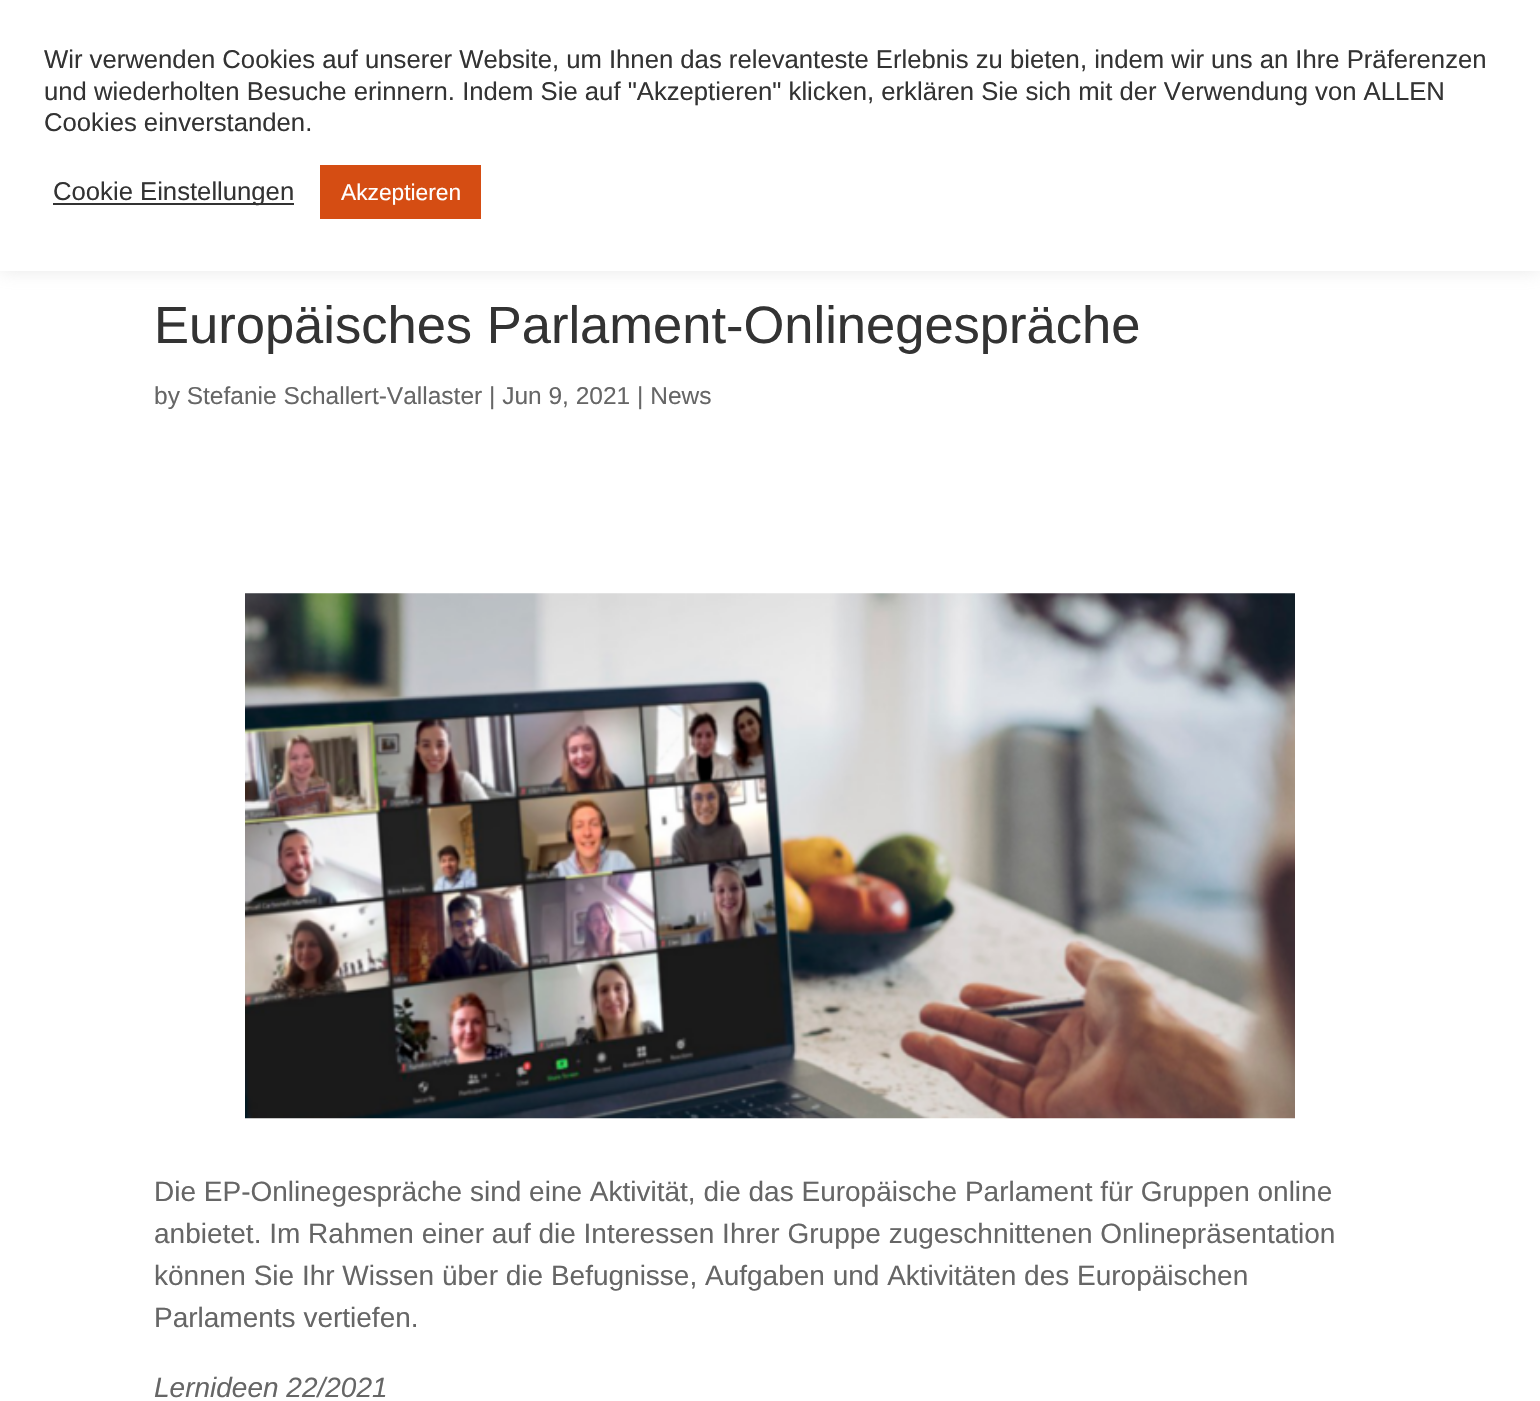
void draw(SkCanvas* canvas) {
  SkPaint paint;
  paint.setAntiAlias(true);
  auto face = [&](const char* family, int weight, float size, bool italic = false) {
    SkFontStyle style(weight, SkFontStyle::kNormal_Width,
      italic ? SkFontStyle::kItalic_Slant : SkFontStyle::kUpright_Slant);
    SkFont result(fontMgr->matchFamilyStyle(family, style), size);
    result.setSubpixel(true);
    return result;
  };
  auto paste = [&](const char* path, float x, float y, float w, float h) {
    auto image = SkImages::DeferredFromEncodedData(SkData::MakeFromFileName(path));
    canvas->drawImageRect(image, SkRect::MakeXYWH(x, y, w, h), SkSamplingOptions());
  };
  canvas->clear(0xffffffff);
  paint.setColor(0x4dacabab);
  paint.setMaskFilter(SkMaskFilter::MakeBlur(kNormal_SkBlurStyle, 9));
  canvas->drawRect(SkRect::MakeXYWH(0, -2, 1540, 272), paint);
  paint.setMaskFilter(nullptr);
  {
    const struct { float x, y, w, h; SkColor color; } items[] = {
      {0, 0, 1540, 271, 0xffffffff},
      {53, 203, 241, 2, 0xff333333},
      {320, 165, 161, 54, 0xffd54d13},
    };
    for (auto [x, y, w, h, color] : items) {
      paint.setColor(color);
      canvas->drawRect(SkRect::MakeXYWH(x, y, w, h), paint);
    }
  }
  paste("img/1.png", 245, 593, 1050, 526);
  auto f0 = face("Liberation Sans", 400, 25.67f);
  paint.setColor(0xff333333);
  {
    const struct { const char* s; float x, y; } items[] = {
      {"Wir verwenden Cookies auf unserer Website, um Ihnen das relevanteste Erlebnis zu bieten, indem wir uns an Ihre Präferenzen", 44, 68},
      {"und wiederholten Besuche erinnern. Indem Sie auf \"Akzeptieren\" klicken, erklären Sie sich mit der Verwendung von ALLEN", 44, 100},
      {"Cookies einverstanden.", 44, 131},
      {"Cookie Einstellungen", 53, 200},
    };
    for (auto [s, x, y] : items) {
      canvas->drawString(s, x, y, f0, paint);
    }
  }
  auto f1 = face("Liberation Sans", 400, 22.75f);
  paint.setColor(0xffffffff);
  canvas->drawString("Akzeptieren", 341, 200, f1, paint);
  auto f2 = face("Liberation Sans", 400, 52.5f);
  paint.setColor(0xff333333);
  canvas->drawString("Europäisches Parlament-Onlinegespräche", 154, 343, f2, paint);
  auto f3 = face("Liberation Sans", 400, 24.5f);
  paint.setColor(0xff666666);
  canvas->drawString("by Stefanie Schallert-Vallaster | Jun 9, 2021 | News", 154, 404, f3, paint);
  auto f4 = face("Liberation Sans", 400, 28);
  {
    const struct { const char* s; float x, y; } items[] = {
      {"Die EP-Onlinegespräche sind eine Aktivität, die das Europäische Parlament für Gruppen online", 154, 1201},
      {"anbietet. Im Rahmen einer auf die Interessen Ihrer Gruppe zugeschnittenen Onlinepräsentation", 154, 1243},
      {"können Sie Ihr Wissen über die Befugnisse, Aufgaben und Aktivitäten des Europäischen", 154, 1285},
      {"Parlaments vertiefen.", 154, 1327},
    };
    for (auto [s, x, y] : items) {
      canvas->drawString(s, x, y, f4, paint);
    }
  }
  auto f5 = face("Liberation Sans", 400, 28, true);
  canvas->drawString("Lernideen 22/2021", 154, 1397, f5, paint);
}
